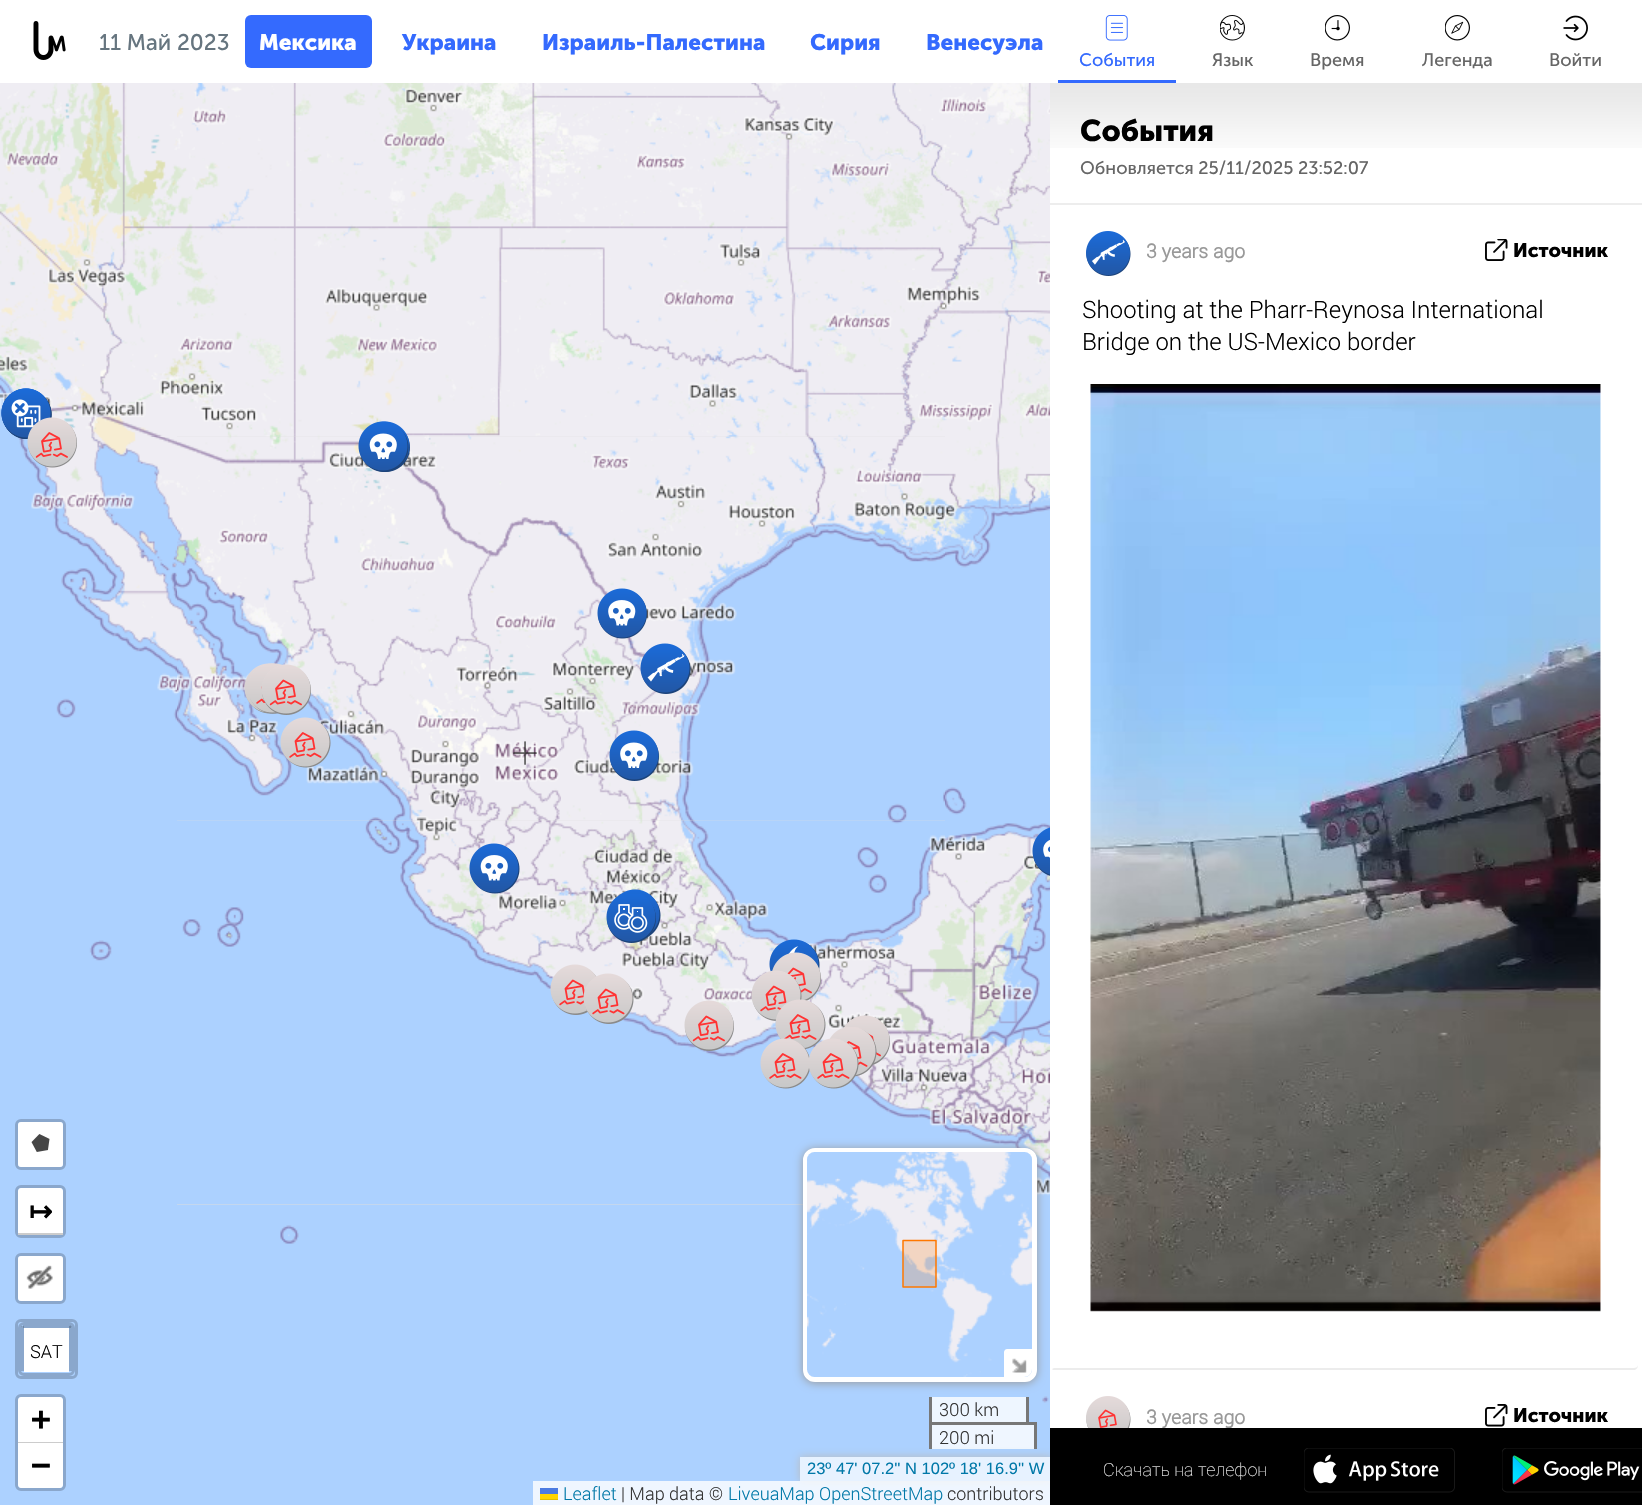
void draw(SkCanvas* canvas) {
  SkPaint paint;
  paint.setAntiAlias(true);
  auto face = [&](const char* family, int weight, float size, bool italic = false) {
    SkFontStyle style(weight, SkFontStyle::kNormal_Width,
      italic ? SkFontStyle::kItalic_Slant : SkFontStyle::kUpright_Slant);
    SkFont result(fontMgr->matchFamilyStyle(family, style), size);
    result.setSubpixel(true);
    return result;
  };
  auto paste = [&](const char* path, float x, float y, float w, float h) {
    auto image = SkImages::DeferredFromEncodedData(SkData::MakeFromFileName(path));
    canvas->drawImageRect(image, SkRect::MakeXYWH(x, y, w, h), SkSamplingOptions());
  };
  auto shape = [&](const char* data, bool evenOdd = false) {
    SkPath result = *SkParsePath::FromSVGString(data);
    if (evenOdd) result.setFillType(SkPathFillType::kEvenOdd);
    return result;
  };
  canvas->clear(0xffdddddd);
  paint.setColor(0xffffffff);
  canvas->drawRect(SkRect::MakeXYWH(0, 0, 1050, 83), paint);
  paste("img/1.png", 33, 21, 33, 39);
  paint.setColor(0xff346afe);
  canvas->drawRoundRect(SkRect::MakeXYWH(245, 15, 127, 53), 6, 6, paint);
  paste("img/2.png", 0, 83, 177, 354);
  paste("img/7.png", 177, 436, 384, 385);
  paste("img/3.png", 177, 83, 384, 354);
  paste("img/8.png", 561, 436, 384, 385);
  paste("img/4.png", 561, 83, 384, 354);
  paste("img/5.png", 945, 83, 105, 354);
  paste("img/6.png", 0, 437, 177, 384);
  paste("img/9.png", 945, 437, 105, 384);
  paste("img/10.png", 0, 821, 177, 384);
  paste("img/11.png", 177, 820, 384, 385);
  paste("img/12.png", 561, 820, 384, 385);
  paste("img/13.png", 945, 821, 105, 384);
  paint.setColor(0xffacd1ff);
  canvas->drawRect(SkRect::MakeXYWH(0, 1205, 177, 300), paint);
  paste("img/14.png", 177, 1205, 384, 300);
  canvas->drawRect(SkRect::MakeXYWH(561, 1205, 384, 300), paint);
  paste("img/15.png", 945, 1205, 105, 300);
  paste("img/16.png", 1, 388, 51, 51);
  paste("img/17.png", 1, 388, 51, 51);
  paste("img/18.png", 1, 388, 51, 51);
  paste("img/19.png", 27, 417, 50, 51);
  paste("img/21.png", 369, 421, 41, 51);
  paste("img/20.png", 358, 421, 51, 51);
  paste("img/22.png", 597, 588, 50, 51);
  paste("img/23.png", 244, 663, 31, 51);
  paste("img/24.png", 640, 643, 51, 51);
  paste("img/26.png", 260, 663, 23, 51);
  paste("img/25.png", 250, 663, 31, 51);
  paste("img/27.png", 261, 664, 50, 51);
  paste("img/28.png", 280, 717, 51, 51);
  paste("img/29.png", 609, 730, 50, 51);
  paste("img/30.png", 469, 843, 51, 51);
  paste("img/31.png", 1032, 827, 18, 49);
  paste("img/32.png", 615, 889, 46, 50);
  paste("img/33.png", 606, 894, 50, 49);
  paste("img/34.png", 769, 939, 51, 33);
  paste("img/35.png", 550, 964, 47, 51);
  paste("img/36.png", 772, 952, 49, 49);
  paste("img/37.png", 583, 973, 51, 51);
  paste("img/38.png", 751, 970, 51, 51);
  paste("img/39.png", 684, 1000, 50, 51);
  paste("img/40.png", 775, 999, 51, 51);
  paste("img/41.png", 843, 1015, 47, 50);
  paste("img/42.png", 760, 1038, 50, 51);
  paste("img/43.png", 829, 1027, 48, 50);
  paste("img/44.png", 809, 1038, 50, 51);
  paste("img/45.png", 513, 741, 24, 24);
  paint.setStroke(true);
  paint.setStrokeWidth(3);
  paint.setColor(0xff8aa7cc);
  canvas->drawRoundRect(SkRect::MakeXYWH(16.5f, 1120.5f, 48, 48), 4.5f, 4.5f, paint);
  paint.setStroke(false);
  paint.setColor(0xffffffff);
  canvas->drawRoundRect(SkRect::MakeXYWH(18, 1122, 45, 45), 3, 3, paint);
  paste("img/46.png", 31, 1134, 19, 18);
  paint.setStroke(true);
  paint.setColor(0xff8aa7cc);
  canvas->drawRoundRect(SkRect::MakeXYWH(16.5f, 1186.5f, 48, 50), 4.5f, 4.5f, paint);
  paint.setStroke(false);
  paint.setColor(0xffffffff);
  canvas->drawPath(shape("M21 1188H60C61.5 1188 63 1189.5 63 1191V1235H18V1191C18 1189.5 19.5 1188 21 1188Z"), paint);
  paint.setColor(0xffcccccc);
  canvas->drawRect(SkRect::MakeXYWH(18, 1233, 45, 2), paint);
  paint.setStroke(true);
  paint.setColor(0xff8aa7cc);
  canvas->drawRoundRect(SkRect::MakeXYWH(16.5f, 1254.5f, 48, 48), 4.5f, 4.5f, paint);
  paint.setStroke(false);
  paint.setColor(0xffffffff);
  canvas->drawRoundRect(SkRect::MakeXYWH(18, 1256, 45, 45), 3, 3, paint);
  paste("img/47.png", 26, 1265, 27, 24);
  paint.setStroke(true);
  paint.setColor(0xff8aa7cc);
  canvas->drawRoundRect(SkRect::MakeXYWH(16.5f, 1320.5f, 60, 57), 4.5f, 4.5f, paint);
  canvas->drawRoundRect(SkRect::MakeXYWH(19.5f, 1323.5f, 54, 51), 4.5f, 4.5f, paint);
  paint.setStroke(false);
  paint.setColor(0xffffffff);
  canvas->drawPath(shape("M24 1328H69V1372H24V1370Z"), paint);
  {
    const struct { float x, y, w, h; SkColor color; } items[] = {
      {23, 1325, 48, 3, 0x33000000},
      {69, 1326, 3, 45, 0x33000000},
      {21, 1326, 3, 45, 0x33000000},
    };
    for (auto [x, y, w, h, color] : items) {
      paint.setColor(color);
      canvas->drawRect(SkRect::MakeXYWH(x, y, w, h), paint);
    }
  }
  paint.setStroke(true);
  paint.setColor(0xff8aa7cc);
  canvas->drawRoundRect(SkRect::MakeXYWH(16.5f, 1395.5f, 48, 94), 4.5f, 4.5f, paint);
  paint.setStroke(false);
  paint.setColor(0xffffffff);
  canvas->drawPath(shape("M21 1397H60C61.5 1397 63 1398.5 63 1400V1443H18V1400C18 1398.5 19.5 1397 21 1397Z"), paint);
  paint.setColor(0xffcccccc);
  canvas->drawRect(SkRect::MakeXYWH(18, 1442, 45, 1), paint);
  paint.setColor(0xffffffff);
  canvas->drawPath(shape("M18 1443H63V1485C63 1486.5 61.5 1488 60 1488H21C19.5 1488 18 1486.5 18 1485Z"), paint);
  paint.setColor(0xff999999);
  paint.setMaskFilter(SkMaskFilter::MakeBlur(kNormal_SkBlurStyle, 5));
  canvas->drawRoundRect(SkRect::MakeXYWH(803, 1149, 234, 234), 12, 12, paint);
  paint.setMaskFilter(nullptr);
  paint.setColor(0xfff8f8f9);
  canvas->drawRoundRect(SkRect::MakeXYWH(805.5f, 1150.5f, 229, 229), 9.5f, 9.5f, paint);
  paint.setStroke(true);
  paint.setStrokeWidth(5);
  paint.setColor(0xffffffff);
  canvas->drawRoundRect(SkRect::MakeXYWH(805.5f, 1150.5f, 229, 229), 9.5f, 9.5f, paint);
  paste("img/48.png", 807, 1152, 30, 225);
  paste("img/49.png", 837, 1152, 195, 225);
  paint.setStroke(false);
  paint.setColor(0x33ff7800);
  canvas->drawRect(SkRect::MakeXYWH(903, 1241, 33, 46), paint);
  paint.setStroke(true);
  paint.setStrokeWidth(1.5f);
  paint.setStrokeCap(SkPaint::kRound_Cap);
  paint.setStrokeJoin(SkPaint::kRound_Join);
  paint.setColor(0xffff7800);
  canvas->drawPath(shape("M903 1287V1240.5H936V1287Z"), paint);
  paint.setStroke(false);
  paint.setColor(0xffffffff);
  canvas->drawPath(shape("M1007 1349H1032V1369C1032 1373.5 1028.5 1377 1024 1377H1004V1352C1004 1350.5 1005.5 1349 1007 1349Z"), paint);
  paste("img/50.png", 1012, 1358, 15, 15);
  {
    const struct { float x, y, w, h; SkColor color; } items[] = {
      {932, 1397, 94, 25, 0xffeef6ff},
      {1026, 1397, 3, 28, 0xff777777},
      {929, 1397, 3, 28, 0xff777777},
      {932, 1425, 102, 24, 0xccffffff},
      {929, 1422, 108, 3, 0xff777777},
      {1034, 1422, 3, 27, 0xff777777},
      {929, 1422, 3, 27, 0xff777777},
    };
    for (auto [x, y, w, h, color] : items) {
      paint.setColor(color);
      canvas->drawRect(SkRect::MakeXYWH(x, y, w, h), paint);
    }
  }
  canvas->save();
  canvas->clipPath(shape("M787 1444H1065V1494H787ZM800 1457H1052V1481H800Z", true), true);
  paint.setColor(0xffbbbbbb);
  paint.setMaskFilter(SkMaskFilter::MakeBlur(kNormal_SkBlurStyle, 4));
  canvas->drawRect(SkRect::MakeXYWH(800, 1457, 252, 24), paint);
  paint.setMaskFilter(nullptr);
  canvas->restore();
  {
    const struct { float x, y, w, h; SkColor color; } items[] = {
      {800, 1457, 250, 24, 0xb3ffffff},
      {533, 1481, 517, 24, 0xccffffff},
      {540, 1488, 18, 6, 0xff4c7be1},
      {540, 1494, 18, 5, 0xffffd500},
      {540, 1499, 18, 1, 0xffe0bc00},
      {1050, 0, 592, 1428, 0xffffffff},
      {1058, 80, 118, 3, 0xff346afe},
    };
    for (auto [x, y, w, h, color] : items) {
      paint.setColor(color);
      canvas->drawRect(SkRect::MakeXYWH(x, y, w, h), paint);
    }
  }
  paste("img/51.png", 1105, 15, 23, 26);
  paste("img/52.png", 1220, 15, 25, 26);
  paste("img/53.png", 1325, 15, 25, 26);
  paste("img/54.png", 1445, 15, 25, 26);
  paste("img/55.png", 1563, 15, 25, 26);
  paste("img/56.png", 1050, 83, 592, 65);
  paint.setColor(0xffededed);
  canvas->drawRect(SkRect::MakeXYWH(1050, 203, 592, 2), paint);
  paint.setColor(0xffececec);
  canvas->drawPath(shape("M1635 1370C1637 1369 1638 1367 1638 1365C1638 1367 1636 1368 1634 1368H1054L1052 1369L1053 1370Z"), paint);
  paste("img/57.png", 1086, 231, 45, 45);
  paste("img/58.png", 1485, 239, 23, 22);
  paste("img/59.png", 1090, 384, 511, 928);
  paste("img/60.png", 1086, 1396, 45, 32);
  paste("img/61.png", 1485, 1404, 23, 23);
  auto f0 = face("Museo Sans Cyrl", 400, 22.5f);
  paint.setColor(0xff66757f);
  canvas->drawString("11 Май 2023", 99, 50, f0, paint);
  auto f1 = face("Museo Sans Cyrl", 700, 22.5f);
  paint.setColor(0xffffffff);
  canvas->drawString("Мексика", 259, 50, f1, paint);
  paint.setColor(0xff346afe);
  {
    const struct { const char* s; float x, y; } items[] = {
      {"Украина", 402, 50},
      {"Израиль-Палестина", 542, 50},
      {"Сирия", 810, 50},
      {"Венесуэла", 926, 50},
    };
    for (auto [s, x, y] : items) {
      canvas->drawString(s, x, y, f1, paint);
    }
  }
  auto f2 = face("DejaVu Sans", 700, 28);
  paint.setColor(0xff000000);
  canvas->drawString("↦", 29, 1221, f2, paint);
  auto f3 = face("Roboto", 300, 18);
  canvas->drawString("SAT", 30, 1358, f3, paint);
  auto f4 = face("DejaVu Sans Mono", 700, 33);
  canvas->drawString("+", 31, 1430, f4, paint);
  canvas->drawString("−", 31, 1476, f4, paint);
  paint.setColor(0xff333333);
  canvas->drawString("300 km", 939, 1416, f3, paint);
  canvas->drawString("200 mi", 939, 1444, f3, paint);
  auto f5 = face("Liberation Sans", 400, 16.5f);
  paint.setColor(0xff0078a8);
  canvas->drawString("23º 47' 07.2'' N 102º 18' 16.9'' W", 807, 1474, f5, paint);
  canvas->drawString("Leaflet", 563, 1500, f3, paint);
  paint.setColor(0xff333333);
  canvas->drawString("| Map data ©", 621, 1500, f3, paint);
  paint.setColor(0xff0078a8);
  canvas->drawString("LiveuaMap OpenStreetMap", 728, 1500, f3, paint);
  paint.setColor(0xff333333);
  canvas->drawString("contributors", 947, 1500, f3, paint);
  auto f6 = face("Museo Sans Cyrl", 400, 18);
  paint.setColor(0xff346afe);
  canvas->drawString("События", 1079, 66, f6, paint);
  paint.setColor(0xff666666);
  {
    const struct { const char* s; float x, y; } items[] = {
      {"Язык", 1212, 66},
      {"Время", 1310, 66},
      {"Легенда", 1422, 66},
      {"Войти", 1549, 66},
    };
    for (auto [s, x, y] : items) {
      canvas->drawString(s, x, y, f6, paint);
    }
  }
  auto f7 = face("Museo Sans Cyrl", 700, 30);
  paint.setColor(0xff000000);
  canvas->drawString("События", 1080, 141, f7, paint);
  paint.setColor(0xff666666);
  canvas->drawString("Обновляется 25/11/2025 23:52:07", 1080, 174, f6, paint);
  auto f8 = face("Roboto", 700, 19.5f);
  paint.setColor(0xff999999);
  canvas->drawString("3 years ago", 1146, 258, f8, paint);
  auto f9 = face("Museo Sans Cyrl", 700, 19.5f);
  paint.setColor(0xff000000);
  canvas->drawString("Источник", 1513, 257, f9, paint);
  auto f10 = face("Roboto", 300, 24);
  canvas->drawString("Shooting at the Pharr-Reynosa International", 1082, 318, f10, paint);
  canvas->drawString("Bridge on the US-Mexico border", 1082, 350, f10, paint);
  paint.setColor(0xff999999);
  canvas->drawString("3 years ago", 1146, 1424, f8, paint);
  paint.setColor(0xff000000);
  canvas->drawString("Источник", 1513, 1422, f9, paint);
  canvas->drawRect(SkRect::MakeXYWH(1050, 1428, 592, 77), paint);
  auto f11 = face("Roboto", 100, 18);
  paint.setColor(0xffffffff);
  canvas->drawString("Скачать на телефон", 1103, 1476, f11, paint);
  paste("img/62.png", 1304, 1448, 151, 45);
  paste("img/63.png", 1502, 1448, 140, 45);
}
